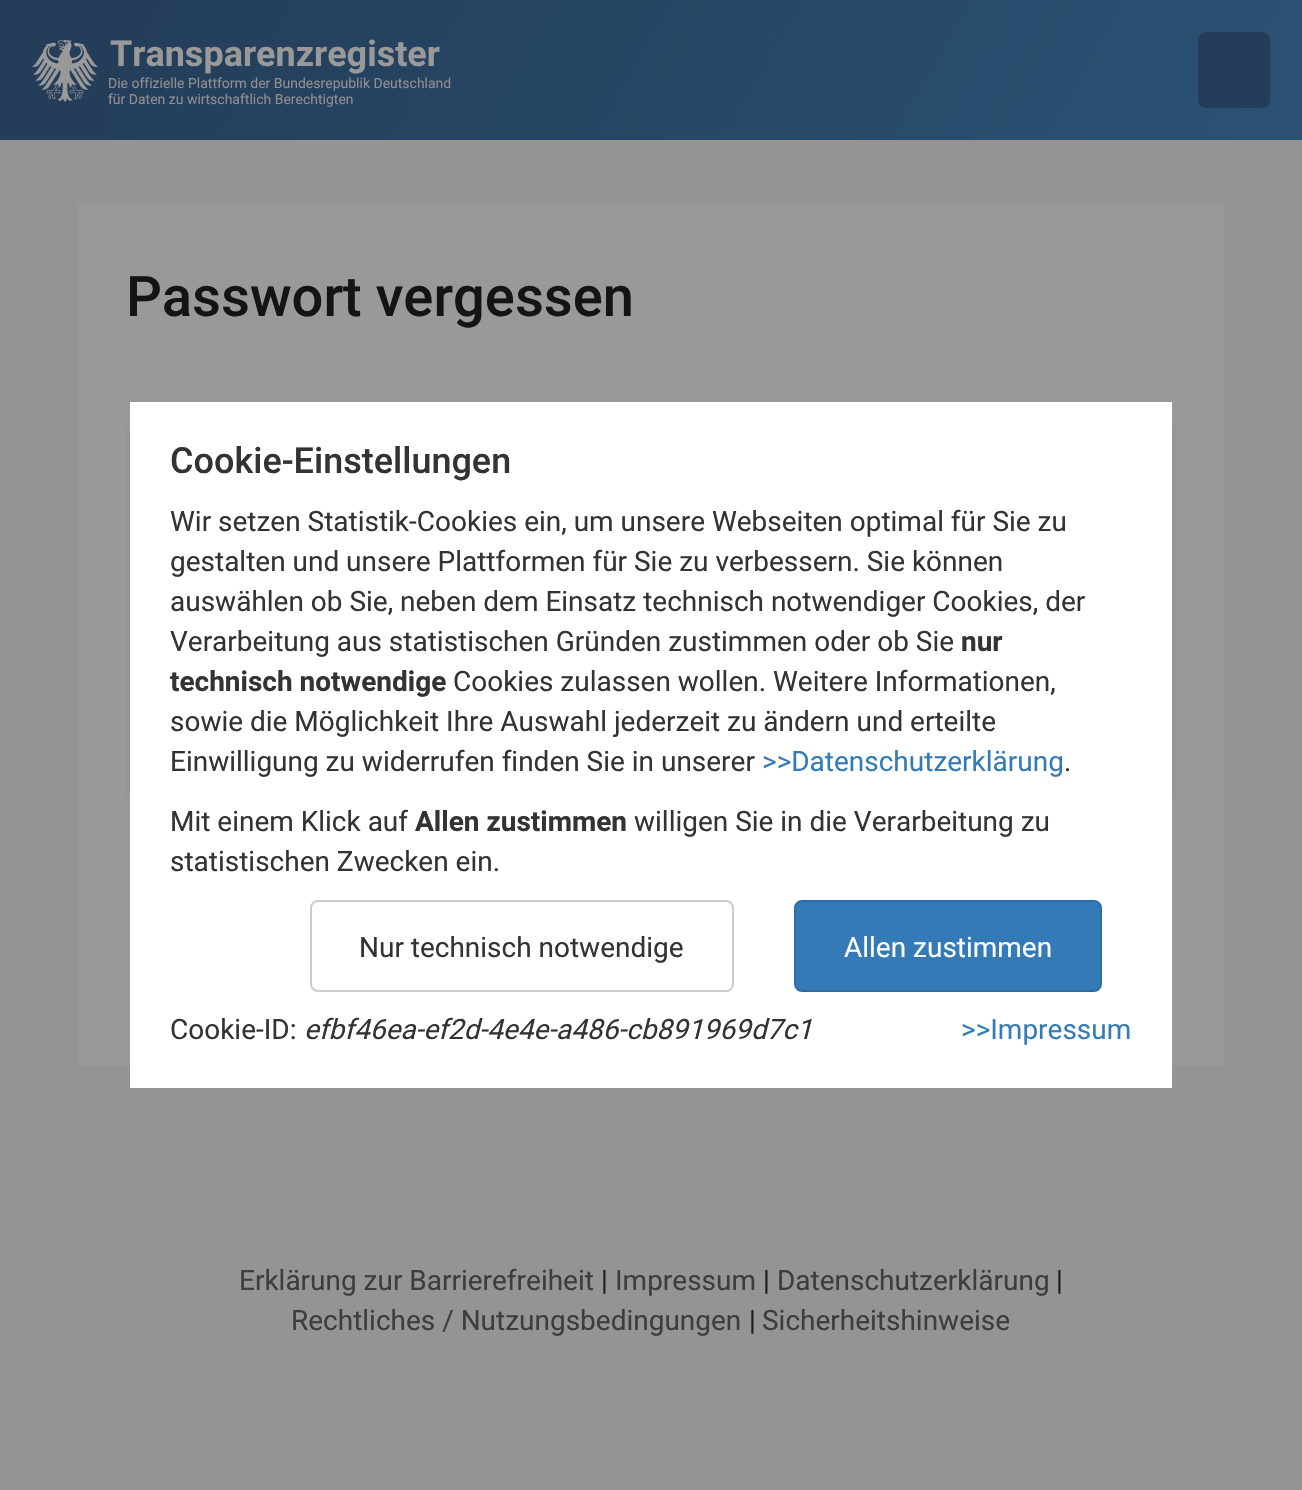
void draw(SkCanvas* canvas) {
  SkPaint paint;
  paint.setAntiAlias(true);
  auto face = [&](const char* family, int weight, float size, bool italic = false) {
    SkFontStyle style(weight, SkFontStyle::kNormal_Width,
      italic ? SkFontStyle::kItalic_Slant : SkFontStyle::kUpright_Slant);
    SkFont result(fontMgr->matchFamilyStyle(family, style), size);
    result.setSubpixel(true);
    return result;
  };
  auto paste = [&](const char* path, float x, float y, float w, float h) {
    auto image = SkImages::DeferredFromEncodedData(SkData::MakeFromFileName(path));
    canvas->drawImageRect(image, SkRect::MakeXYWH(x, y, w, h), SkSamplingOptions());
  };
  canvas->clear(0xff949494);
  paint.setColor(0xff243d58);
  canvas->drawRect(SkRect::MakeXYWH(0, 0, 109, 140), paint);
  paste("img/1.png", 109, 0, 1193, 140);
  paste("img/2.png", 32, 40, 66, 62);
  canvas->drawRoundRect(SkRect::MakeXYWH(1198, 32, 72, 76), 8, 8, paint);
  {
    const struct { float x, y, w, h; SkColor color; } items[] = {
      {78, 204, 1146, 862, 0xff999999},
      {126, 426, 1050, 372, 0xff959595},
      {130, 402, 1042, 686, 0xffffffff},
    };
    for (auto [x, y, w, h, color] : items) {
      paint.setColor(color);
      canvas->drawRect(SkRect::MakeXYWH(x, y, w, h), paint);
    }
  }
  paint.setStroke(true);
  paint.setStrokeWidth(2);
  paint.setColor(0xffcccccc);
  canvas->drawRoundRect(SkRect::MakeXYWH(311, 901, 422, 90), 7, 7, paint);
  paint.setStroke(false);
  paint.setColor(0xff337ab7);
  canvas->drawRoundRect(SkRect::MakeXYWH(795, 901, 306, 90), 7, 7, paint);
  paint.setStroke(true);
  paint.setColor(0xff2e6da4);
  canvas->drawRoundRect(SkRect::MakeXYWH(795, 901, 306, 90), 7, 7, paint);
  auto f0 = face("Roboto", 700, 36);
  paint.setStroke(false);
  paint.setColor(0xff999999);
  canvas->drawString("Transparenzregister", 110, 66, f0, paint);
  auto f1 = face("Roboto", 400, 14);
  paint.setColor(0xff8f8f8f);
  canvas->drawString("Die offizielle Plattform der Bundesrepublik Deutschland", 108, 88, f1, paint);
  canvas->drawString("für Daten zu wirtschaftlich Berechtigten", 108, 104, f1, paint);
  auto f2 = face("Roboto", 500, 56);
  paint.setColor(0xff141414);
  canvas->drawString("Passwort vergessen", 126, 316, f2, paint);
  auto f3 = face("Roboto", 500, 36);
  paint.setColor(0xff333333);
  canvas->drawString("Cookie-Einstellungen", 170, 473, f3, paint);
  auto f4 = face("Roboto", 400, 28);
  {
    const struct { const char* s; float x, y; } items[] = {
      {"Wir setzen Statistik-Cookies ein, um unsere Webseiten optimal für Sie zu", 170, 531},
      {"gestalten und unsere Plattformen für Sie zu verbessern. Sie können", 170, 571},
      {"auswählen ob Sie, neben dem Einsatz technisch notwendiger Cookies, der", 170, 611},
      {"Verarbeitung aus statistischen Gründen zustimmen oder ob Sie", 170, 651},
    };
    for (auto [s, x, y] : items) {
      canvas->drawString(s, x, y, f4, paint);
    }
  }
  auto f5 = face("Roboto", 700, 28);
  canvas->drawString("nur", 961, 651, f5, paint);
  canvas->drawString("technisch notwendige", 170, 691, f5, paint);
  {
    const struct { const char* s; float x, y; } items[] = {
      {"Cookies zulassen wollen. Weitere Informationen,", 453, 691},
      {"sowie die Möglichkeit Ihre Auswahl jederzeit zu ändern und erteilte", 170, 731},
      {"Einwilligung zu widerrufen finden Sie in unserer", 170, 771},
    };
    for (auto [s, x, y] : items) {
      canvas->drawString(s, x, y, f4, paint);
    }
  }
  paint.setColor(0xff337ab7);
  canvas->drawString(">>Datenschutzerklärung", 762, 771, f4, paint);
  paint.setColor(0xff333333);
  canvas->drawString(".", 1064, 771, f4, paint);
  canvas->drawString("Mit einem Klick auf", 170, 831, f4, paint);
  canvas->drawString("Allen zustimmen", 415, 831, f5, paint);
  {
    const struct { const char* s; float x, y; } items[] = {
      {"willigen Sie in die Verarbeitung zu", 634, 831},
      {"statistischen Zwecken ein.", 170, 871},
      {"Nur technisch notwendige", 359, 957},
    };
    for (auto [s, x, y] : items) {
      canvas->drawString(s, x, y, f4, paint);
    }
  }
  paint.setColor(0xffffffff);
  canvas->drawString("Allen zustimmen", 844, 957, f4, paint);
  paint.setColor(0xff333333);
  canvas->drawString("Cookie-ID:", 170, 1039, f4, paint);
  auto f6 = face("Roboto", 400, 28, true);
  canvas->drawString("efbf46ea-ef2d-4e4e-a486-cb891969d7c1", 304, 1039, f6, paint);
  paint.setColor(0xff337ab7);
  canvas->drawString(">>Impressum", 961, 1039, f4, paint);
  paint.setColor(0xff3d3d3d);
  canvas->drawString("Erklärung zur Barrierefreiheit", 239, 1290, f4, paint);
  paint.setColor(0xff1f1f1f);
  canvas->drawString("|", 601, 1290, f4, paint);
  paint.setColor(0xff3d3d3d);
  canvas->drawString("Impressum", 615, 1290, f4, paint);
  paint.setColor(0xff1f1f1f);
  canvas->drawString("|", 763, 1290, f4, paint);
  paint.setColor(0xff3d3d3d);
  canvas->drawString("Datenschutzerklärung", 777, 1290, f4, paint);
  paint.setColor(0xff1f1f1f);
  canvas->drawString("|", 1056, 1290, f4, paint);
  paint.setColor(0xff3d3d3d);
  canvas->drawString("Rechtliches / Nutzungsbedingungen", 291, 1330, f4, paint);
  paint.setColor(0xff1f1f1f);
  canvas->drawString("|", 749, 1330, f4, paint);
  paint.setColor(0xff3d3d3d);
  canvas->drawString("Sicherheitshinweise", 762, 1330, f4, paint);
}
